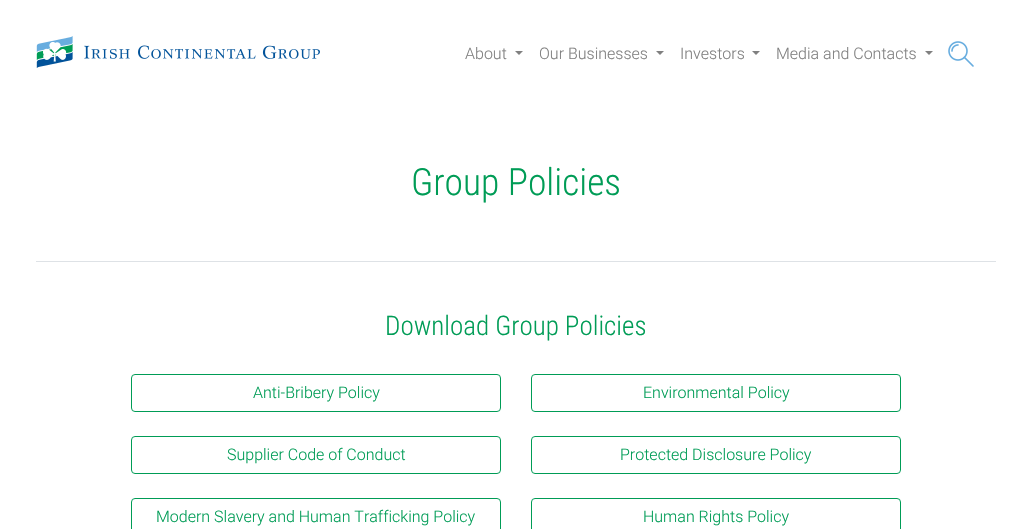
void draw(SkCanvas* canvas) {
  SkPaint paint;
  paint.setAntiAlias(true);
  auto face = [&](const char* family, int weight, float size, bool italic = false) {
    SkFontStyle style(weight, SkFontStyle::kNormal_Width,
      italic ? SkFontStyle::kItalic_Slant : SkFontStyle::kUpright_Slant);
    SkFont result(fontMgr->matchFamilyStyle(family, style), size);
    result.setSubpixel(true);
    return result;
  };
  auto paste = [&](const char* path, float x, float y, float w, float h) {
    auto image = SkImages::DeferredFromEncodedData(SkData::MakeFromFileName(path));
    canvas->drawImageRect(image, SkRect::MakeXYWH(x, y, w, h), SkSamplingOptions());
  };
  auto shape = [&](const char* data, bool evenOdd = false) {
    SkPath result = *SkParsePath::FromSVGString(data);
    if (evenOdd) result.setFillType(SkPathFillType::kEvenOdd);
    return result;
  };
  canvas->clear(0xffffffff);
  paste("img/1.png", 36, 36, 37, 32);
  paste("img/2.png", 84, 45, 236, 14);
  paint.setColor(0xff808080);
  canvas->drawPath(shape("M515 51H523L519 55Z"), paint);
  canvas->drawPath(shape("M656 51H664L660 55Z"), paint);
  canvas->drawPath(shape("M752 51H760L756 55Z"), paint);
  canvas->drawPath(shape("M925 51H933L929 55Z"), paint);
  paste("img/3.png", 948, 41, 26, 26);
  paint.setColor(0xffdee2e6);
  canvas->drawRect(SkRect::MakeXYWH(36, 261, 960, 1), paint);
  paint.setStroke(true);
  paint.setStrokeWidth(1);
  paint.setColor(0xff009c56);
  canvas->drawRoundRect(SkRect::MakeXYWH(131.5f, 374.5f, 369, 37), 3.5f, 3.5f, paint);
  canvas->drawRoundRect(SkRect::MakeXYWH(531.5f, 374.5f, 369, 37), 3.5f, 3.5f, paint);
  canvas->drawRoundRect(SkRect::MakeXYWH(131.5f, 436.5f, 369, 37), 3.5f, 3.5f, paint);
  canvas->drawRoundRect(SkRect::MakeXYWH(531.5f, 436.5f, 369, 37), 3.5f, 3.5f, paint);
  canvas->drawRoundRect(SkRect::MakeXYWH(131.5f, 498.5f, 369, 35), 3.5f, 3.5f, paint);
  canvas->drawRoundRect(SkRect::MakeXYWH(531.5f, 498.5f, 369, 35), 3.5f, 3.5f, paint);
  auto f0 = face("Roboto", 300, 16);
  paint.setStroke(false);
  paint.setColor(0xff808080);
  {
    const struct { const char* s; float x, y; } items[] = {
      {"About", 465, 59},
      {"Our Businesses", 539, 59},
      {"Investors", 680, 59},
      {"Media and Contacts", 776, 59},
    };
    for (auto [s, x, y] : items) {
      canvas->drawString(s, x, y, f0, paint);
    }
  }
  auto f1 = face("Roboto Condensed", 300, 37.5f);
  paint.setColor(0xff009c56);
  canvas->drawString("Group Policies", 411, 195, f1, paint);
  auto f2 = face("Roboto Condensed", 300, 27);
  canvas->drawString("Download Group Policies", 385, 335, f2, paint);
  {
    const struct { const char* s; float x, y; } items[] = {
      {"Anti-Bribery Policy", 253, 398},
      {"Environmental Policy", 643, 398},
      {"Supplier Code of Conduct", 227, 460},
      {"Protected Disclosure Policy", 620, 460},
      {"Modern Slavery and Human Trafficking Policy", 156, 522},
      {"Human Rights Policy", 643, 522},
    };
    for (auto [s, x, y] : items) {
      canvas->drawString(s, x, y, f0, paint);
    }
  }
}
